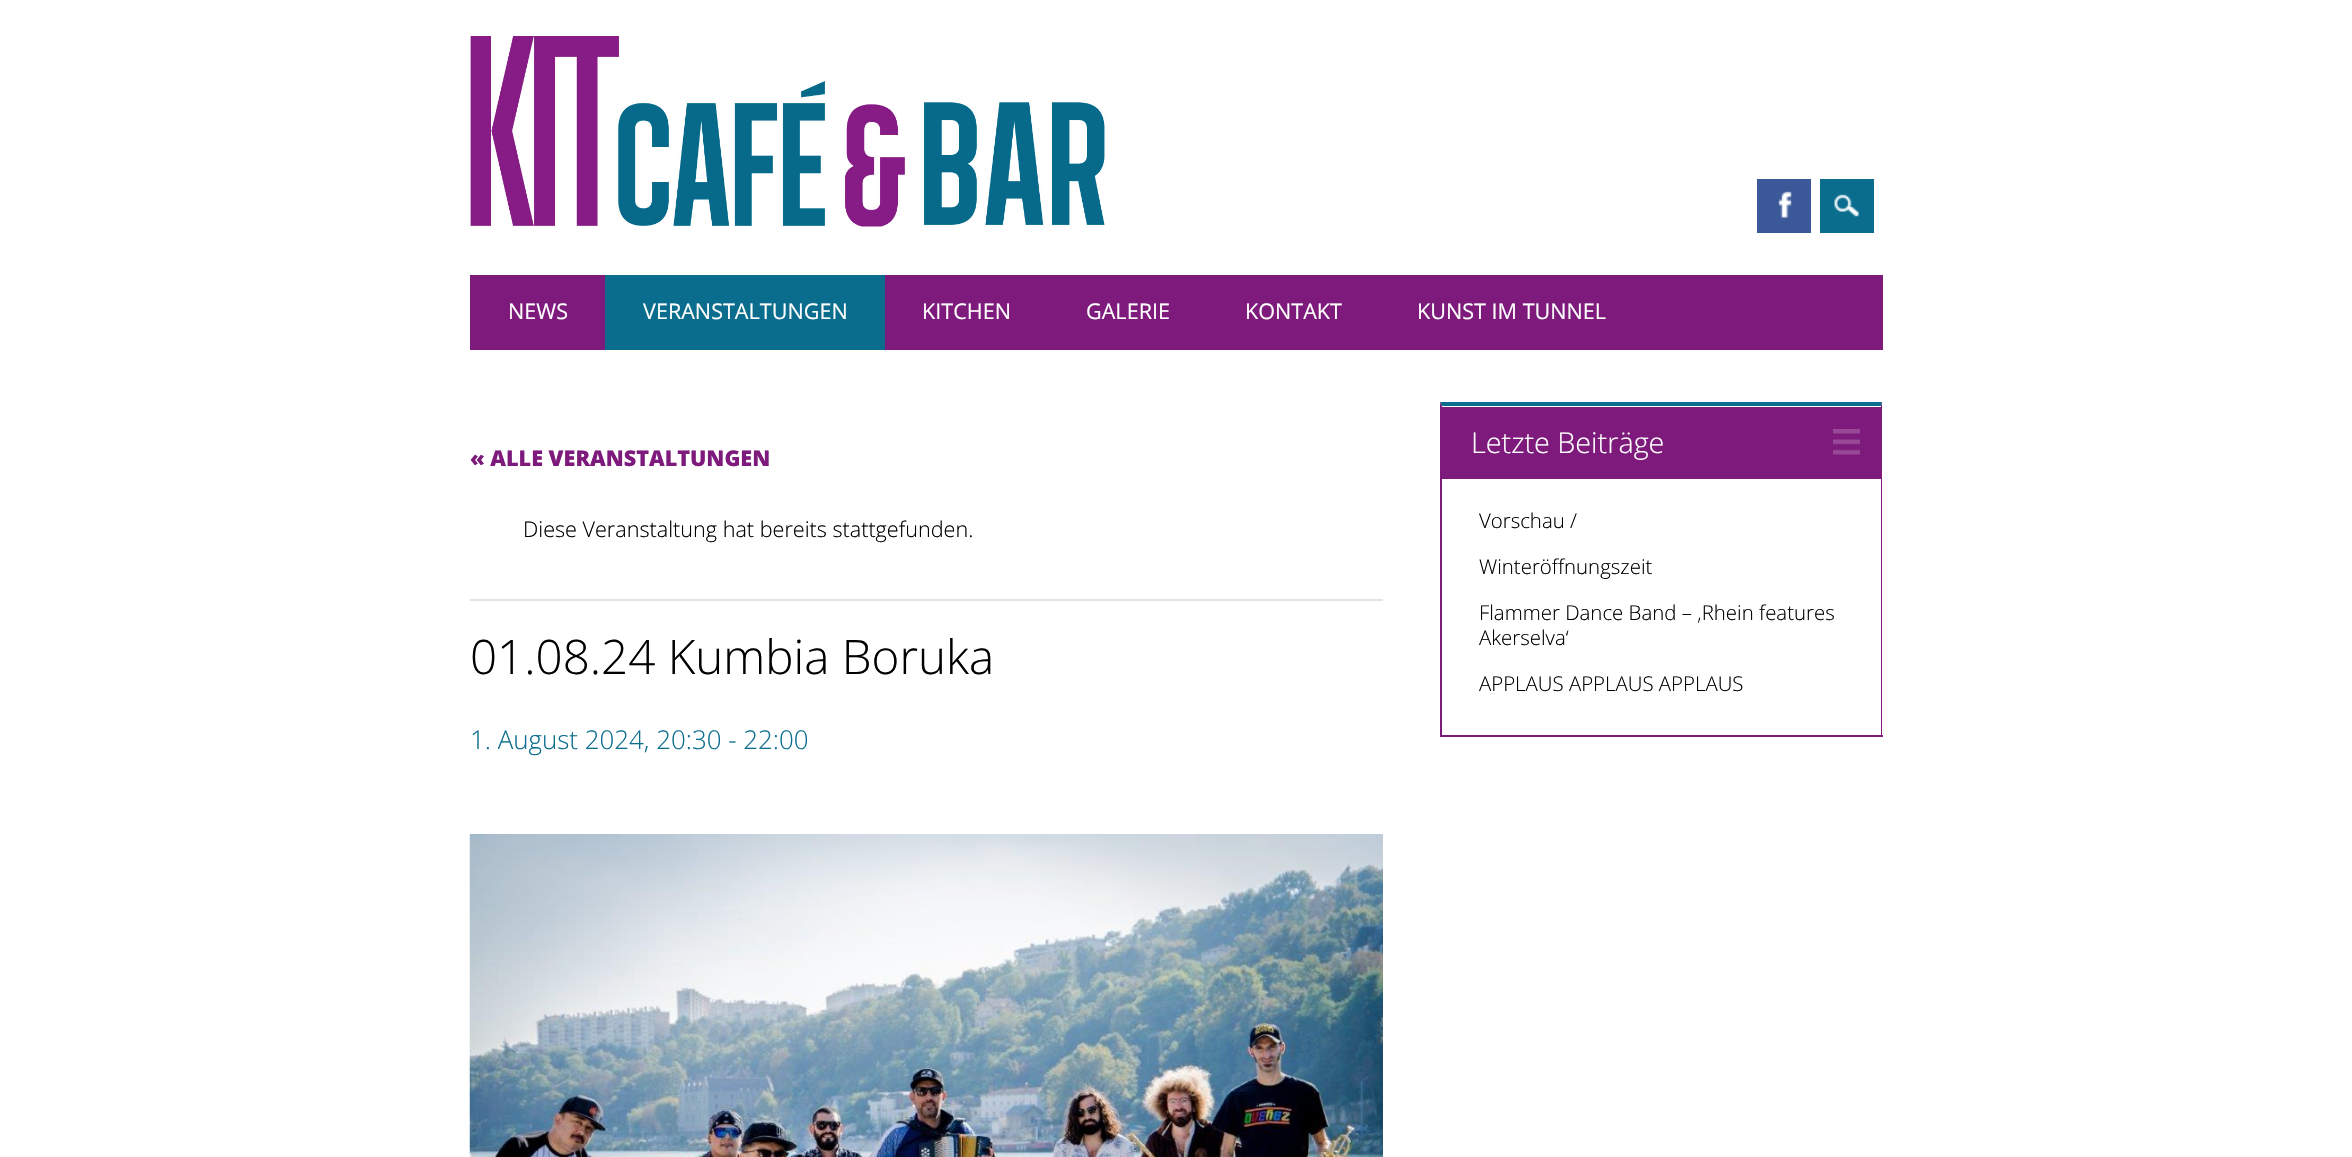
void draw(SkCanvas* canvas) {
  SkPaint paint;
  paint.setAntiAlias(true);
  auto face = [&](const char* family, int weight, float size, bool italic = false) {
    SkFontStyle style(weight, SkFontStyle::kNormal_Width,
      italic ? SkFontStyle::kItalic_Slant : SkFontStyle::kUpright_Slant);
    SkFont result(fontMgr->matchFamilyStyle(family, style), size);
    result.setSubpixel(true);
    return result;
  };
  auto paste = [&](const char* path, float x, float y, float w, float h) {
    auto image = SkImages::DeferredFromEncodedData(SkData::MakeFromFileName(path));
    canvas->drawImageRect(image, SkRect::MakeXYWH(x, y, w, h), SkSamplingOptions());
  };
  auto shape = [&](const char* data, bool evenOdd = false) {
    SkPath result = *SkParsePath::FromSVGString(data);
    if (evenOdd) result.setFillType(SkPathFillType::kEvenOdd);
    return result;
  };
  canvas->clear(0xffffffff);
  paste("img/1.png", 470, 36, 636, 191);
  paint.setColor(0xff3b5998);
  canvas->drawRect(SkRect::MakeXYWH(1757, 179, 54, 54), paint);
  paste("img/2.png", 1778, 191, 14, 27);
  paint.setColor(0xff0a6d8e);
  canvas->drawRect(SkRect::MakeXYWH(1820, 179, 54, 54), paint);
  paste("img/3.png", 1834, 194, 25, 23);
  {
    const struct { float x, y, w, h; SkColor color; } items[] = {
      {470, 275, 1413, 75, 0xff7d1a7c},
      {605, 275, 280, 75, 0xff0a6d8e},
      {470, 599, 913, 2, 0xffe4e4e4},
    };
    for (auto [x, y, w, h, color] : items) {
      paint.setColor(color);
      canvas->drawRect(SkRect::MakeXYWH(x, y, w, h), paint);
    }
  }
  paste("img/4.png", 469, 834, 914, 323);
  paint.setColor(0xff0a6d8e);
  canvas->drawPath(shape("M1440 402H1882L1881 406H1442Z"), paint);
  paint.setColor(0xff7d1a7c);
  canvas->drawPath(shape("M1882 402V736L1881 735V406Z"), paint);
  canvas->drawRect(SkRect::MakeXYWH(1440, 735, 443, 2), paint);
  canvas->drawPath(shape("M1440 736V402L1442 406V735Z"), paint);
  canvas->drawRect(SkRect::MakeXYWH(1442, 407, 439, 72), paint);
  paste("img/5.png", 1833, 429, 27, 26);
  auto f0 = face("Open Sans", 400, 21.6f);
  paint.setColor(0xffffffff);
  {
    const struct { const char* s; float x, y; } items[] = {
      {"NEWS", 508, 319},
      {"VERANSTALTUNGEN", 643, 319},
      {"KITCHEN", 922, 319},
      {"GALERIE", 1086, 319},
      {"KONTAKT", 1245, 319},
      {"KUNST IM TUNNEL", 1417, 319},
    };
    for (auto [s, x, y] : items) {
      canvas->drawString(s, x, y, f0, paint);
    }
  }
  auto f1 = face("Open Sans", 800, 21.6f);
  paint.setColor(0xff7d1a7c);
  canvas->drawString("« ALLE VERANSTALTUNGEN", 470, 466, f1, paint);
  auto f2 = face("Open Sans", 300, 21.6f);
  paint.setColor(0xff000000);
  canvas->drawString("Diese Veranstaltung hat bereits stattgefunden.", 523, 537, f2, paint);
  auto f3 = face("Open Sans", 300, 47.5f);
  canvas->drawString("01.08.24 Kumbia Boruka", 470, 674, f3, paint);
  auto f4 = face("Open Sans", 300, 25.9f);
  paint.setColor(0xff0a6d8e);
  canvas->drawString("1. August 2024, 20:30 - 22:00", 470, 749, f4, paint);
  auto f5 = face("Open Sans", 300, 28.75f);
  paint.setColor(0xffffffff);
  canvas->drawString("Letzte Beiträge", 1471, 453, f5, paint);
  auto f6 = face("Open Sans", 300, 20.4f);
  paint.setColor(0xff000000);
  {
    const struct { const char* s; float x, y; } items[] = {
      {"Vorschau /", 1479, 528},
      {"Winteröffnungszeit", 1479, 574},
      {"Flammer Dance Band – ‚Rhein features", 1479, 620},
      {"Akerselva‘", 1479, 645},
      {"APPLAUS APPLAUS APPLAUS", 1479, 691},
    };
    for (auto [s, x, y] : items) {
      canvas->drawString(s, x, y, f6, paint);
    }
  }
}
